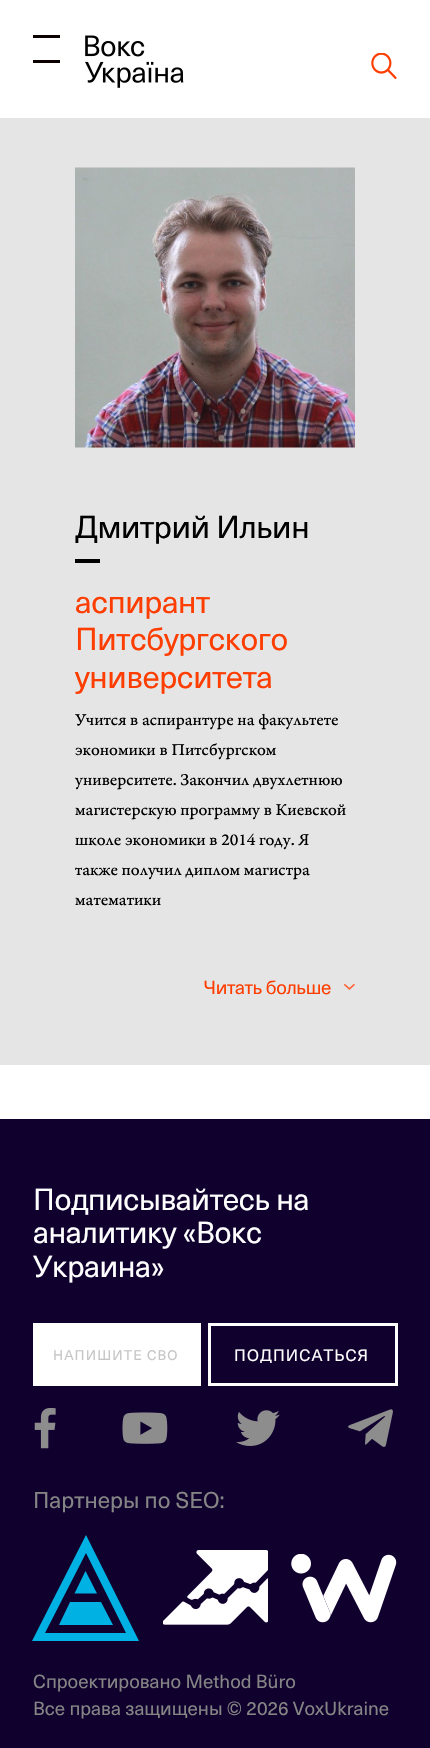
void draw(SkCanvas* canvas) {
  SkPaint paint;
  paint.setAntiAlias(true);
  auto face = [&](const char* family, int weight, float size, bool italic = false) {
    SkFontStyle style(weight, SkFontStyle::kNormal_Width,
      italic ? SkFontStyle::kItalic_Slant : SkFontStyle::kUpright_Slant);
    SkFont result(fontMgr->matchFamilyStyle(family, style), size);
    result.setSubpixel(true);
    return result;
  };
  auto writeSpaced = [&](const char* s, float x, float y, const SkFont& font, const SkPaint& ink, float letter, float word) {
    std::vector<SkGlyphID> glyphs(font.countText(s, strlen(s), SkTextEncoding::kUTF8));
    std::vector<float> xs(glyphs.size());
    font.textToGlyphs(s, strlen(s), SkTextEncoding::kUTF8, glyphs);
    font.getXPos(glyphs, xs, x);
    float extra = 0;
    for (size_t i = 0; i < glyphs.size(); i++) {
      xs[i] += extra;
      extra += letter + word * (glyphs[i] == font.unicharToGlyph(' '));
    }
    canvas->drawTextBlob(SkTextBlob::MakeFromPosHGlyphs(glyphs, xs, y, font), 0, 0, ink);
  };
  auto paste = [&](const char* path, float x, float y, float w, float h) {
    auto image = SkImages::DeferredFromEncodedData(SkData::MakeFromFileName(path));
    canvas->drawImageRect(image, SkRect::MakeXYWH(x, y, w, h), SkSamplingOptions());
  };
  auto shape = [&](const char* data, bool evenOdd = false) {
    SkPath result = *SkParsePath::FromSVGString(data);
    if (evenOdd) result.setFillType(SkPathFillType::kEvenOdd);
    return result;
  };
  canvas->clear(0xffffffff);
  paint.setColor(0xff0b0000);
  canvas->drawRect(SkRect::MakeXYWH(33, 35, 27, 3), paint);
  canvas->drawRect(SkRect::MakeXYWH(33, 60, 27, 3), paint);
  paste("img/1.png", 85, 35, 99, 53);
  paste("img/2.png", 371, 53, 26, 26);
  paint.setColor(0xffe5e5e5);
  canvas->drawRect(SkRect::MakeXYWH(0, 118, 430, 947), paint);
  paste("img/3.png", 75, 167, 280, 281);
  paint.setColor(0xff000000);
  canvas->drawRect(SkRect::MakeXYWH(75, 559, 25, 4), paint);
  paste("img/4.png", 344, 984, 11, 6);
  paint.setColor(0xff0f002e);
  canvas->drawRect(SkRect::MakeXYWH(0, 1119, 430, 629), paint);
  paint.setColor(0xffffffff);
  canvas->drawRect(SkRect::MakeXYWH(33, 1323, 168, 63), paint);
  paint.setStroke(true);
  paint.setStrokeWidth(3);
  canvas->drawRect(SkRect::MakeXYWH(209.5f, 1324.5f, 187, 60), paint);
  paste("img/5.png", 34, 1408, 22, 41);
  paste("img/6.png", 122, 1412, 46, 32);
  paste("img/7.png", 236, 1410, 44, 36);
  paste("img/8.png", 348, 1409, 45, 38);
  paint.setStroke(false);
  paint.setColor(0xff00b2e3);
  canvas->drawPath(shape("M86 1553L126 1633H45ZM86 1535L32 1641H139Z"), paint);
  canvas->drawPath(shape("M97 1593.5L85.5 1571L74.5 1593.5ZM101 1602H70L59 1625H113Z"), paint);
  paste("img/9.png", 163, 1550, 105, 75);
  paste("img/10.png", 291, 1554, 106, 69);
  auto f0 = face("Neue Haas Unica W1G", 400, 31.25f);
  paint.setColor(0xff000000);
  writeSpaced("Дмитрий Ильин", 75, 538, f0, paint, -0.4f, 0);
  paint.setColor(0xfffe3d00);
  {
    const struct { const char* s; float x, y; } items[] = {
      {"аспирант", 75, 613},
      {"Питсбургского", 75, 650},
      {"университета", 75, 688},
    };
    for (auto [s, x, y] : items) {
      writeSpaced(s, x, y, f0, paint, -0.4f, 0);
    }
  }
  auto f1 = face("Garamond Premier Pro", 400, 17.5f);
  paint.setColor(0xff000000);
  {
    const struct { const char* s; float x, y; } items[] = {
      {"Учится в аспирантуре на факультете", 75, 725},
      {"экономики в Питсбургском", 75, 755},
      {"университете. Закончил двухлетнюю", 75, 785},
      {"магистерскую программу в Киевской", 75, 815},
      {"школе экономики в 2014 году. Я", 75, 845},
      {"также получил диплом магистра", 75, 875},
      {"математики", 75, 905},
    };
    for (auto [s, x, y] : items) {
      canvas->drawString(s, x, y, f1, paint);
    }
  }
  auto f2 = face("Neue Haas Unica W1G", 400, 18.75f);
  paint.setColor(0xfffe3d00);
  writeSpaced("Читать больше", 204, 994, f2, paint, -0.4f, 0);
  auto f3 = face("Neue Haas Unica W1G", 400, 30);
  paint.setColor(0xffffffff);
  {
    const struct { const char* s; float x, y; } items[] = {
      {"Подписывайтесь на", 33, 1210},
      {"аналитику «Вокс", 33, 1243},
      {"Украина»", 33, 1277},
    };
    for (auto [s, x, y] : items) {
      writeSpaced(s, x, y, f3, paint, -0.4f, 0);
    }
  }
  auto f4 = face("Neue Haas Unica W1G", 400, 13.75f);
  paint.setColor(0xffc6c6c6);
  writeSpaced("НАПИШИТЕ СВО", 53, 1360, f4, paint, 1.1f, 0);
  canvas->save();
  canvas->clipRect(SkRect::MakeXYWH(235, 1346, 135, 17));
  auto f5 = face("Neue Haas Unica W1G", 400, 16.25f);
  paint.setColor(0xffffffff);
  writeSpaced("ПОДПИСАТЬСЯ", 234, 1361, f5, paint, 1.1f, 0);
  canvas->restore();
  auto f6 = face("Neue Haas Unica W1G", 400, 22.5f);
  paint.setColor(0xff858585);
  canvas->drawString("Партнеры по SEO:", 33, 1508, f6, paint);
  canvas->drawString("Спроектировано Method Büro", 33, 1688, f2, paint);
  canvas->drawString("Все права защищены © 2026 VoxUkraine", 33, 1715, f2, paint);
}
